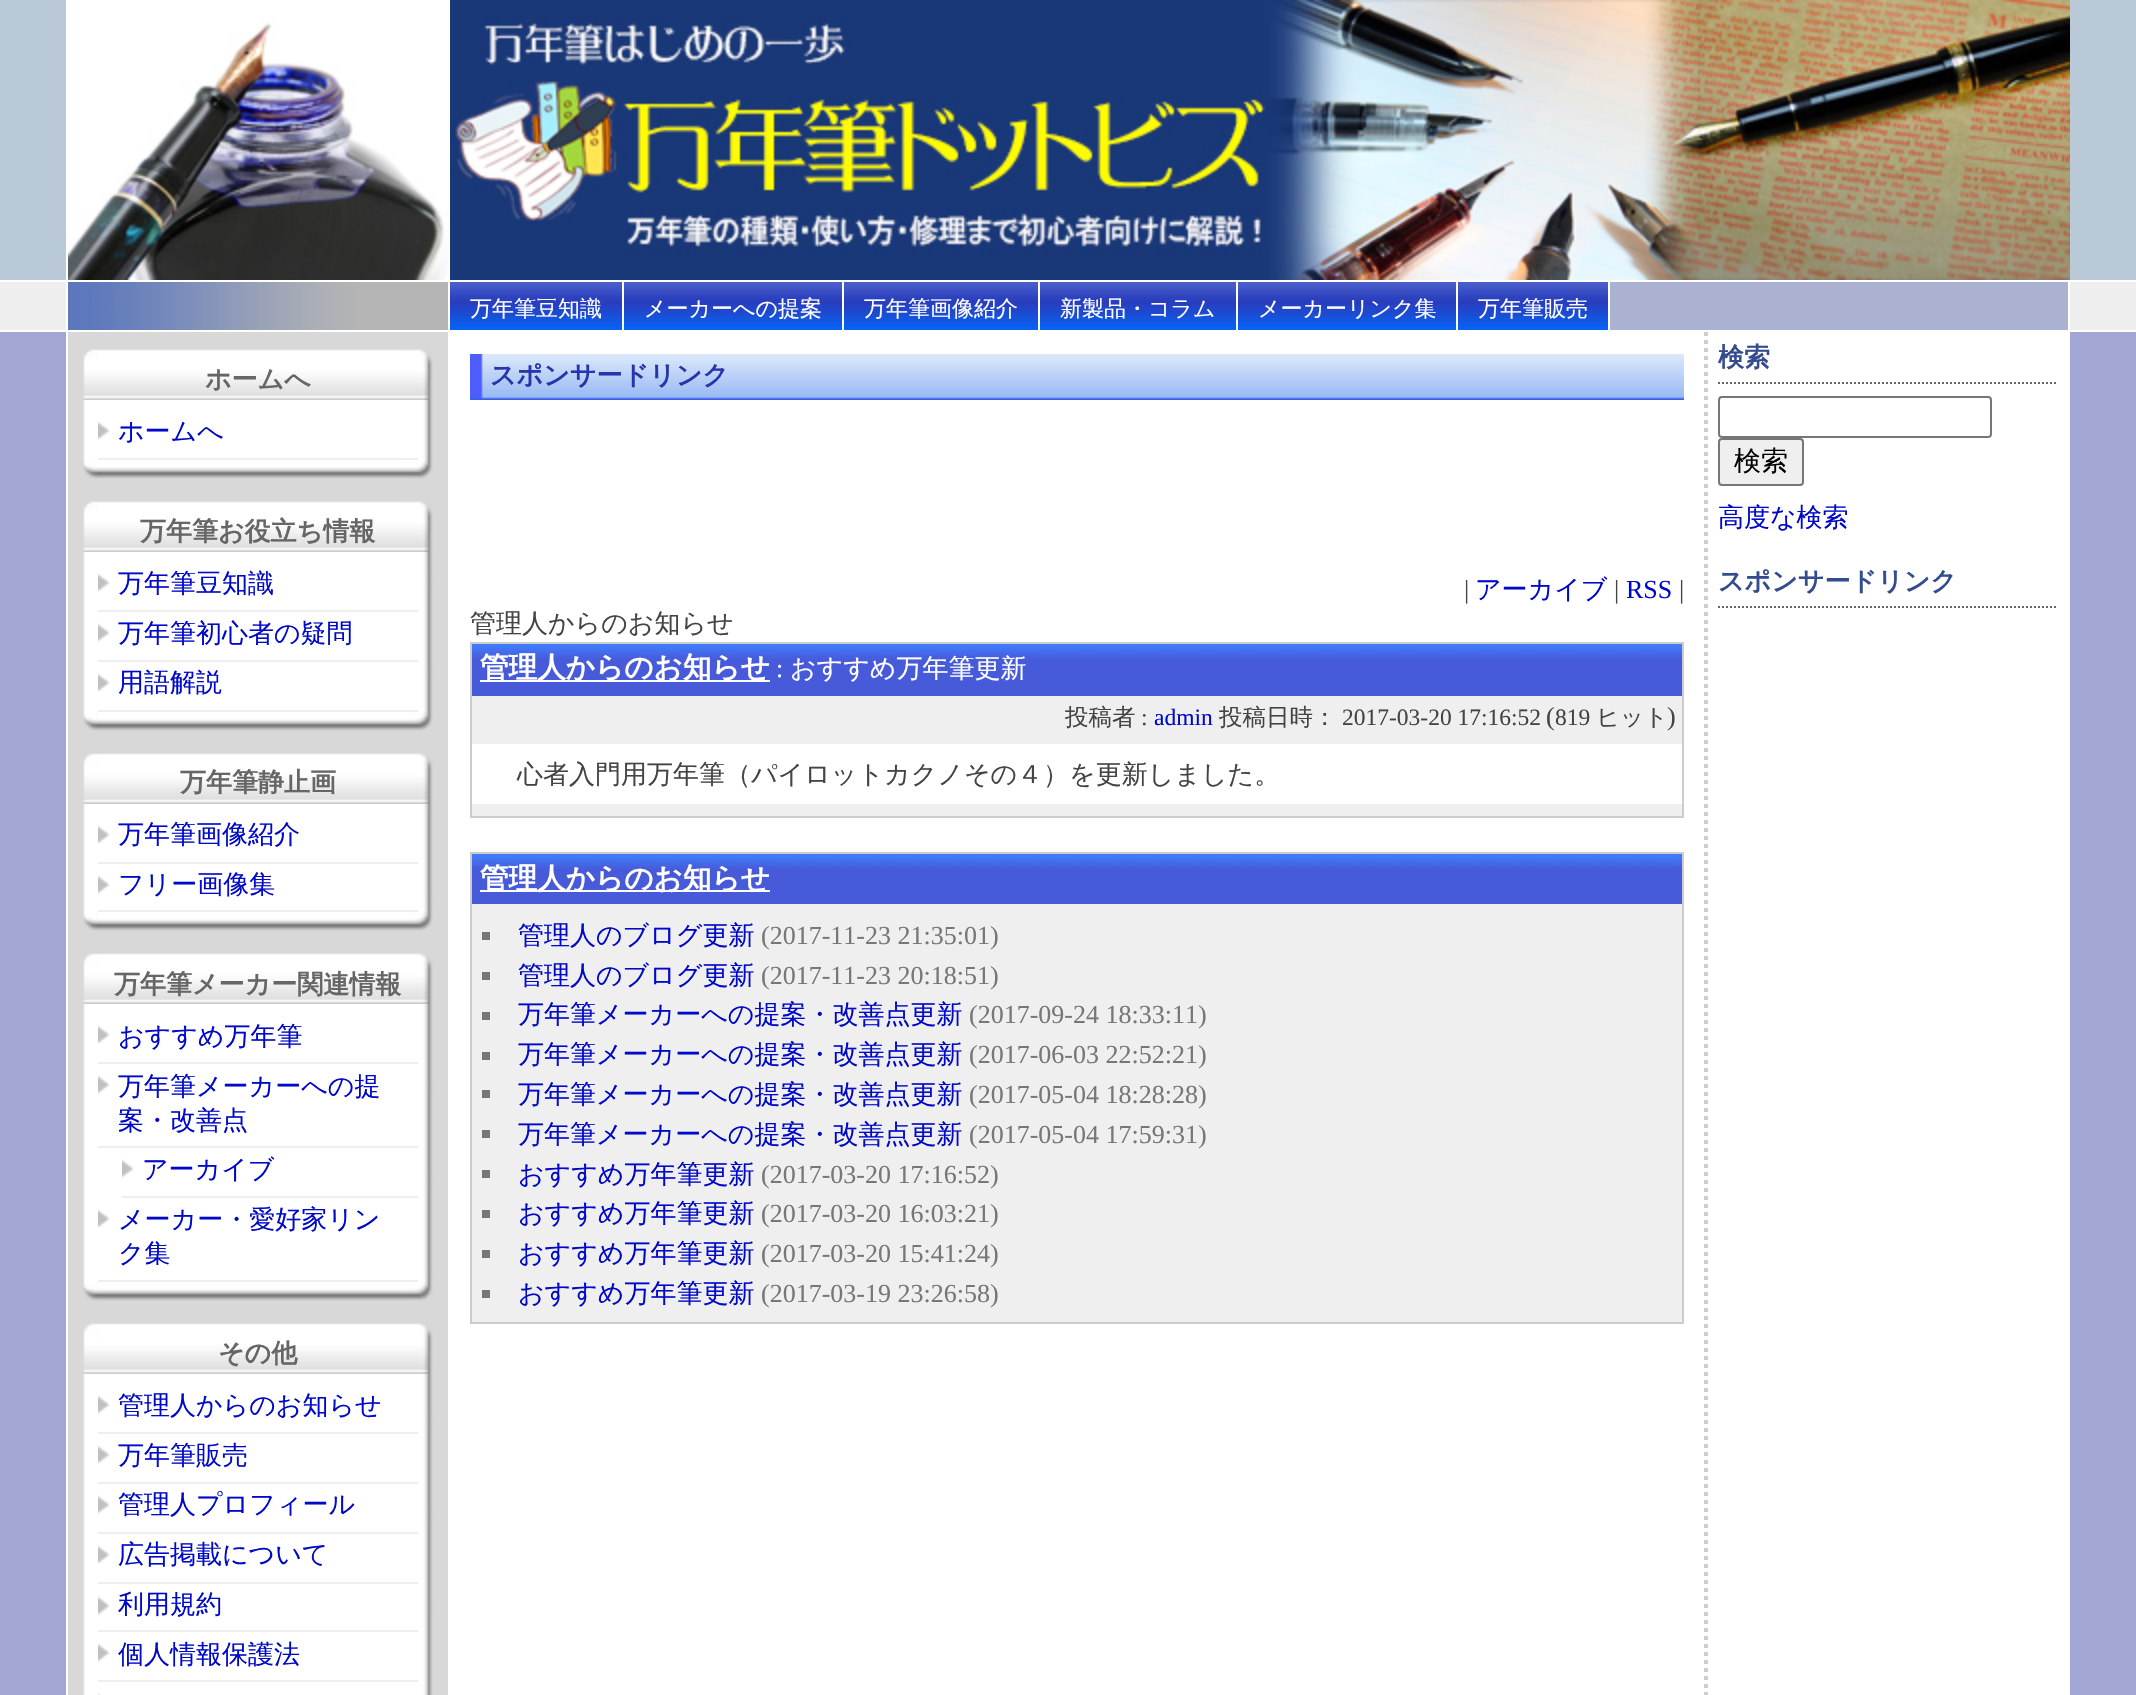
void draw(SkCanvas* canvas) {
  SkPaint paint;
  paint.setAntiAlias(true);
  auto face = [&](const char* family, int weight, float size, bool italic = false) {
    SkFontStyle style(weight, SkFontStyle::kNormal_Width,
      italic ? SkFontStyle::kItalic_Slant : SkFontStyle::kUpright_Slant);
    SkFont result(fontMgr->matchFamilyStyle(family, style), size);
    result.setSubpixel(true);
    return result;
  };
  auto paste = [&](const char* path, float x, float y, float w, float h) {
    auto image = SkImages::DeferredFromEncodedData(SkData::MakeFromFileName(path));
    canvas->drawImageRect(image, SkRect::MakeXYWH(x, y, w, h), SkSamplingOptions());
  };
  auto shape = [&](const char* data, bool evenOdd = false) {
    SkPath result = *SkParsePath::FromSVGString(data);
    if (evenOdd) result.setFillType(SkPathFillType::kEvenOdd);
    return result;
  };
  canvas->clear(0xffb9c9d7);
  {
    const struct { float x, y, w, h; SkColor color; } items[] = {
      {0, 280, 2136, 2, 0xffffffff},
      {66, 0, 2, 280, 0xffffffff},
      {448, 0, 2, 280, 0xffffffff},
    };
    for (auto [x, y, w, h, color] : items) {
      paint.setColor(color);
      canvas->drawRect(SkRect::MakeXYWH(x, y, w, h), paint);
    }
  }
  paste("img/1.png", 68, 0, 380, 280);
  paste("img/2.png", 450, 0, 1620, 280);
  {
    const struct { float x, y, w, h; SkColor color; } items[] = {
      {0, 282, 2136, 48, 0xffeeeeee},
      {0, 330, 2136, 2, 0xffffffff},
      {66, 282, 2004, 48, 0xffffffff},
      {1610, 282, 458, 48, 0xffabb2d1},
    };
    for (auto [x, y, w, h, color] : items) {
      paint.setColor(color);
      canvas->drawRect(SkRect::MakeXYWH(x, y, w, h), paint);
    }
  }
  paste("img/3.png", 68, 282, 380, 48);
  paste("img/4.png", 450, 282, 172, 48);
  paste("img/5.png", 624, 282, 218, 48);
  paste("img/6.png", 844, 282, 194, 48);
  paste("img/7.png", 1040, 282, 196, 48);
  paste("img/5.png", 1238, 282, 218, 48);
  paste("img/8.png", 1458, 282, 150, 48);
  {
    const struct { float x, y, w, h; SkColor color; } items[] = {
      {0, 332, 2136, 1363, 0xffa2a6d4},
      {66, 332, 2004, 1363, 0xffffffff},
      {68, 332, 380, 1042, 0xffd8d8d8},
    };
    for (auto [x, y, w, h, color] : items) {
      paint.setColor(color);
      canvas->drawRect(SkRect::MakeXYWH(x, y, w, h), paint);
    }
  }
  paste("img/9.png", 83, 349, 350, 15);
  paste("img/10.png", 83, 364, 350, 36);
  paste("img/11.png", 68, 400, 380, 60);
  paste("img/12.png", 98, 421, 12, 19);
  paint.setColor(0xffeeeeee);
  canvas->drawRect(SkRect::MakeXYWH(98, 458, 320, 2), paint);
  paste("img/13.png", 83, 460, 350, 19);
  paste("img/9.png", 83, 501, 350, 15);
  paste("img/10.png", 83, 516, 350, 36);
  paste("img/14.png", 68, 552, 380, 160);
  paste("img/12.png", 98, 573, 12, 19);
  canvas->drawRect(SkRect::MakeXYWH(98, 610, 320, 2), paint);
  paste("img/12.png", 98, 623, 12, 19);
  canvas->drawRect(SkRect::MakeXYWH(98, 660, 320, 2), paint);
  paste("img/12.png", 98, 673, 12, 19);
  canvas->drawRect(SkRect::MakeXYWH(98, 710, 320, 2), paint);
  paste("img/13.png", 83, 712, 350, 19);
  paste("img/9.png", 83, 753, 350, 15);
  paste("img/10.png", 83, 768, 350, 36);
  paste("img/15.png", 68, 804, 380, 108);
  paste("img/12.png", 98, 825, 12, 19);
  canvas->drawRect(SkRect::MakeXYWH(98, 862, 320, 2), paint);
  paste("img/12.png", 98, 875, 12, 19);
  canvas->drawRect(SkRect::MakeXYWH(98, 910, 320, 2), paint);
  paste("img/13.png", 83, 912, 350, 19);
  paste("img/9.png", 83, 953, 350, 15);
  paste("img/10.png", 83, 968, 350, 36);
  paste("img/16.png", 68, 1004, 380, 278);
  paste("img/12.png", 98, 1025, 12, 19);
  canvas->drawRect(SkRect::MakeXYWH(98, 1062, 320, 2), paint);
  paste("img/12.png", 98, 1075, 12, 19);
  canvas->drawRect(SkRect::MakeXYWH(98, 1146, 320, 2), paint);
  paste("img/12.png", 122, 1159, 12, 19);
  canvas->drawRect(SkRect::MakeXYWH(122, 1196, 296, 2), paint);
  paste("img/12.png", 98, 1209, 12, 19);
  canvas->drawRect(SkRect::MakeXYWH(98, 1280, 320, 2), paint);
  paste("img/13.png", 83, 1282, 350, 19);
  paste("img/9.png", 83, 1323, 350, 15);
  paste("img/10.png", 83, 1338, 350, 36);
  paste("img/17.png", 68, 1374, 380, 321);
  paste("img/12.png", 98, 1395, 12, 19);
  canvas->drawRect(SkRect::MakeXYWH(98, 1432, 320, 2), paint);
  paste("img/12.png", 98, 1445, 12, 19);
  canvas->drawRect(SkRect::MakeXYWH(98, 1482, 320, 2), paint);
  paste("img/12.png", 98, 1495, 12, 19);
  canvas->drawRect(SkRect::MakeXYWH(98, 1532, 320, 2), paint);
  paste("img/12.png", 98, 1545, 12, 19);
  canvas->drawRect(SkRect::MakeXYWH(98, 1582, 320, 2), paint);
  paste("img/18.png", 98, 1596, 12, 20);
  canvas->drawRect(SkRect::MakeXYWH(98, 1630, 320, 2), paint);
  paste("img/12.png", 98, 1643, 12, 19);
  canvas->drawRect(SkRect::MakeXYWH(98, 1680, 320, 2), paint);
  paste("img/19.png", 98, 1693, 3, 2);
  paste("img/20.png", 470, 354, 1214, 46);
  paint.setStroke(true);
  paint.setStrokeWidth(2);
  paint.setColor(0xffcccccc);
  canvas->drawRect(SkRect::MakeXYWH(471, 643, 1212, 174), paint);
  paste("img/21.png", 472, 644, 1210, 52);
  paint.setStroke(false);
  {
    const struct { float x, y, w, h; SkColor color; } items[] = {
      {480, 680, 290, 2, 0xffffffff},
      {472, 696, 1210, 48, 0xffefefef},
      {472, 804, 1210, 12, 0xffefefef},
    };
    for (auto [x, y, w, h, color] : items) {
      paint.setColor(color);
      canvas->drawRect(SkRect::MakeXYWH(x, y, w, h), paint);
    }
  }
  paint.setStroke(true);
  paint.setColor(0xffcccccc);
  canvas->drawRect(SkRect::MakeXYWH(471, 853, 1212, 470), paint);
  paste("img/22.png", 472, 854, 1210, 50);
  paint.setStroke(false);
  {
    const struct { float x, y, w, h; SkColor color; } items[] = {
      {480, 890, 290, 2, 0xffffffff},
      {472, 904, 1210, 418, 0xffefefef},
      {482, 932, 8, 8, 0xff777777},
      {482, 972, 8, 8, 0xff777777},
      {482, 1012, 8, 8, 0xff777777},
      {482, 1052, 8, 8, 0xff777777},
      {482, 1090, 8, 8, 0xff777777},
      {482, 1130, 8, 8, 0xff777777},
      {482, 1170, 8, 8, 0xff777777},
      {482, 1210, 8, 8, 0xff777777},
      {482, 1250, 8, 8, 0xff777777},
      {482, 1290, 8, 8, 0xff777777},
    };
    for (auto [x, y, w, h, color] : items) {
      paint.setColor(color);
      canvas->drawRect(SkRect::MakeXYWH(x, y, w, h), paint);
    }
  }
  paint.setStroke(true);
  paint.setStrokeWidth(4);
  paint.setColor(0xffcccccc);
  paint.setPathEffect(SkDashPathEffect::Make({{4, 4}}, 0));
  canvas->drawPath(shape("M1706 332V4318"), paint);
  paint.setPathEffect(nullptr);
  paint.setStrokeWidth(2);
  paint.setColor(0xff666666);
  paint.setPathEffect(SkDashPathEffect::Make({{2, 2}}, 0));
  canvas->drawPath(shape("M1718 383H2058"), paint);
  paint.setPathEffect(nullptr);
  paint.setColor(0xff767676);
  canvas->drawRoundRect(SkRect::MakeXYWH(1719, 397, 272, 40), 3, 3, paint);
  paint.setStroke(false);
  paint.setColor(0xffefefef);
  canvas->drawRoundRect(SkRect::MakeXYWH(1719, 439, 84, 46), 3, 3, paint);
  paint.setStroke(true);
  paint.setColor(0xff767676);
  canvas->drawRoundRect(SkRect::MakeXYWH(1719, 439, 84, 46), 3, 3, paint);
  paint.setColor(0xff666666);
  paint.setPathEffect(SkDashPathEffect::Make({{2, 2}}, 0));
  canvas->drawPath(shape("M1718 607H2058"), paint);
  paint.setPathEffect(nullptr);
  auto f0 = face("WenQuanYi Zen Hei", 500, 22);
  paint.setStroke(false);
  paint.setColor(0xffffffff);
  {
    const struct { const char* s; float x, y; } items[] = {
      {"万年筆豆知識", 470, 316},
      {"メーカーへの提案", 644, 316},
      {"万年筆画像紹介", 864, 316},
      {"新製品・コラム", 1060, 316},
      {"メーカーリンク集", 1258, 316},
      {"万年筆販売", 1478, 316},
    };
    for (auto [s, x, y] : items) {
      canvas->drawString(s, x, y, f0, paint);
    }
  }
  auto f1 = face("WenQuanYi Zen Hei", 700, 26);
  paint.setColor(0xff666666);
  canvas->drawString("ホームへ", 205, 388, f1, paint);
  auto f2 = face("WenQuanYi Zen Hei", 500, 26);
  paint.setColor(0xff0009c9);
  canvas->drawString("ホームへ", 118, 440, f2, paint);
  paint.setColor(0xff666666);
  canvas->drawString("万年筆お役立ち情報", 140, 540, f1, paint);
  paint.setColor(0xff0009c9);
  {
    const struct { const char* s; float x, y; } items[] = {
      {"万年筆豆知識", 118, 592},
      {"万年筆初心者の疑問", 118, 642},
      {"用語解説", 118, 691},
    };
    for (auto [s, x, y] : items) {
      canvas->drawString(s, x, y, f2, paint);
    }
  }
  paint.setColor(0xff666666);
  canvas->drawString("万年筆静止画", 180, 791, f1, paint);
  paint.setColor(0xff0009c9);
  canvas->drawString("万年筆画像紹介", 118, 843, f2, paint);
  canvas->drawString("フリー画像集", 118, 893, f2, paint);
  paint.setColor(0xff666666);
  canvas->drawString("万年筆メーカー関連情報", 114, 993, f1, paint);
  paint.setColor(0xff0009c9);
  {
    const struct { const char* s; float x, y; } items[] = {
      {"おすすめ万年筆", 118, 1045},
      {"万年筆メーカーへの提", 118, 1095},
      {"案・改善点", 118, 1129},
      {"アーカイブ", 142, 1178},
      {"メーカー・愛好家リン", 118, 1228},
      {"ク集", 118, 1262},
    };
    for (auto [s, x, y] : items) {
      canvas->drawString(s, x, y, f2, paint);
    }
  }
  paint.setColor(0xff666666);
  canvas->drawString("その他", 218, 1362, f1, paint);
  paint.setColor(0xff0009c9);
  {
    const struct { const char* s; float x, y; } items[] = {
      {"管理人からのお知らせ", 118, 1414},
      {"万年筆販売", 118, 1464},
      {"管理人プロフィール", 118, 1513},
      {"広告掲載について", 118, 1563},
      {"利用規約", 118, 1613},
      {"個人情報保護法", 118, 1663},
    };
    for (auto [s, x, y] : items) {
      canvas->drawString(s, x, y, f2, paint);
    }
  }
  paint.setColor(0xff2535ab);
  canvas->drawString("スポンサードリンク", 490, 384, f1, paint);
  auto f3 = face("Liberation Serif", 400, 26);
  paint.setColor(0xff444444);
  canvas->drawString("|", 1464, 598, f3, paint);
  paint.setColor(0xff0009c9);
  canvas->drawString("アーカイブ", 1475, 598, f2, paint);
  paint.setColor(0xff444444);
  canvas->drawString("|", 1614, 598, f3, paint);
  paint.setColor(0xff0009c9);
  canvas->drawString("RSS", 1626, 598, f3, paint);
  paint.setColor(0xff444444);
  canvas->drawString("|", 1679, 598, f3, paint);
  canvas->drawString("管理人からのお知らせ", 470, 632, f2, paint);
  auto f4 = face("WenQuanYi Zen Hei", 700, 28.6f);
  paint.setColor(0xffffffff);
  canvas->drawString("管理人からのお知らせ", 480, 677, f4, paint);
  canvas->drawString(":", 776, 677, f3, paint);
  canvas->drawString("おすすめ万年筆更新", 790, 677, f2, paint);
  auto f5 = face("WenQuanYi Zen Hei", 500, 23.5f);
  paint.setColor(0xff444444);
  canvas->drawString("投稿者", 1065, 725, f5, paint);
  auto f6 = face("Liberation Serif", 400, 23.5f);
  canvas->drawString(":", 1141, 725, f6, paint);
  paint.setColor(0xff0009c9);
  canvas->drawString("admin", 1154, 725, f6, paint);
  paint.setColor(0xff444444);
  canvas->drawString("投稿日時：", 1219, 725, f5, paint);
  canvas->drawString("2017-03-20 17:16:52", 1342, 725, f6, paint);
  canvas->drawString("(", 1546, 725, f3, paint);
  canvas->drawString("819", 1555, 725, f6, paint);
  canvas->drawString("ヒット", 1596, 725, f5, paint);
  canvas->drawString(")", 1667, 725, f3, paint);
  auto f7 = face("Noto Sans", 100, 35);
  canvas->drawString("初", 482, 783, f7, paint);
  canvas->drawString("心者入門用万年筆（パイロットカクノその４）を更新しました。", 517, 783, f2, paint);
  paint.setColor(0xffffffff);
  canvas->drawString("管理人からのお知らせ", 480, 888, f4, paint);
  paint.setColor(0xff0009c9);
  canvas->drawString("管理人のブログ更新", 518, 944, f2, paint);
  paint.setColor(0xff777777);
  canvas->drawString("(2017-11-23 21:35:01)", 761, 944, f3, paint);
  paint.setColor(0xff0009c9);
  canvas->drawString("管理人のブログ更新", 518, 984, f2, paint);
  paint.setColor(0xff777777);
  canvas->drawString("(2017-11-23 20:18:51)", 761, 984, f3, paint);
  paint.setColor(0xff0009c9);
  canvas->drawString("万年筆メーカーへの提案・改善点更新", 518, 1023, f2, paint);
  paint.setColor(0xff777777);
  canvas->drawString("(2017-09-24 18:33:11)", 969, 1023, f3, paint);
  paint.setColor(0xff0009c9);
  canvas->drawString("万年筆メーカーへの提案・改善点更新", 518, 1063, f2, paint);
  paint.setColor(0xff777777);
  canvas->drawString("(2017-06-03 22:52:21)", 969, 1063, f3, paint);
  paint.setColor(0xff0009c9);
  canvas->drawString("万年筆メーカーへの提案・改善点更新", 518, 1103, f2, paint);
  paint.setColor(0xff777777);
  canvas->drawString("(2017-05-04 18:28:28)", 969, 1103, f3, paint);
  paint.setColor(0xff0009c9);
  canvas->drawString("万年筆メーカーへの提案・改善点更新", 518, 1143, f2, paint);
  paint.setColor(0xff777777);
  canvas->drawString("(2017-05-04 17:59:31)", 969, 1143, f3, paint);
  paint.setColor(0xff0009c9);
  canvas->drawString("おすすめ万年筆更新", 518, 1183, f2, paint);
  paint.setColor(0xff777777);
  canvas->drawString("(2017-03-20 17:16:52)", 761, 1183, f3, paint);
  paint.setColor(0xff0009c9);
  canvas->drawString("おすすめ万年筆更新", 518, 1222, f2, paint);
  paint.setColor(0xff777777);
  canvas->drawString("(2017-03-20 16:03:21)", 761, 1222, f3, paint);
  paint.setColor(0xff0009c9);
  canvas->drawString("おすすめ万年筆更新", 518, 1262, f2, paint);
  paint.setColor(0xff777777);
  canvas->drawString("(2017-03-20 15:41:24)", 761, 1262, f3, paint);
  paint.setColor(0xff0009c9);
  canvas->drawString("おすすめ万年筆更新", 518, 1302, f2, paint);
  paint.setColor(0xff777777);
  canvas->drawString("(2017-03-19 23:26:58)", 761, 1302, f3, paint);
  paint.setColor(0xff344c8e);
  canvas->drawString("検索", 1718, 366, f1, paint);
  auto f8 = face("WenQuanYi Zen Hei", 500, 27);
  paint.setColor(0xff000000);
  canvas->drawString("検索", 1734, 470, f8, paint);
  paint.setColor(0xff0009c9);
  canvas->drawString("高度な検索", 1718, 526, f2, paint);
  paint.setColor(0xff344c8e);
  canvas->drawString("スポンサードリンク", 1718, 590, f1, paint);
}
